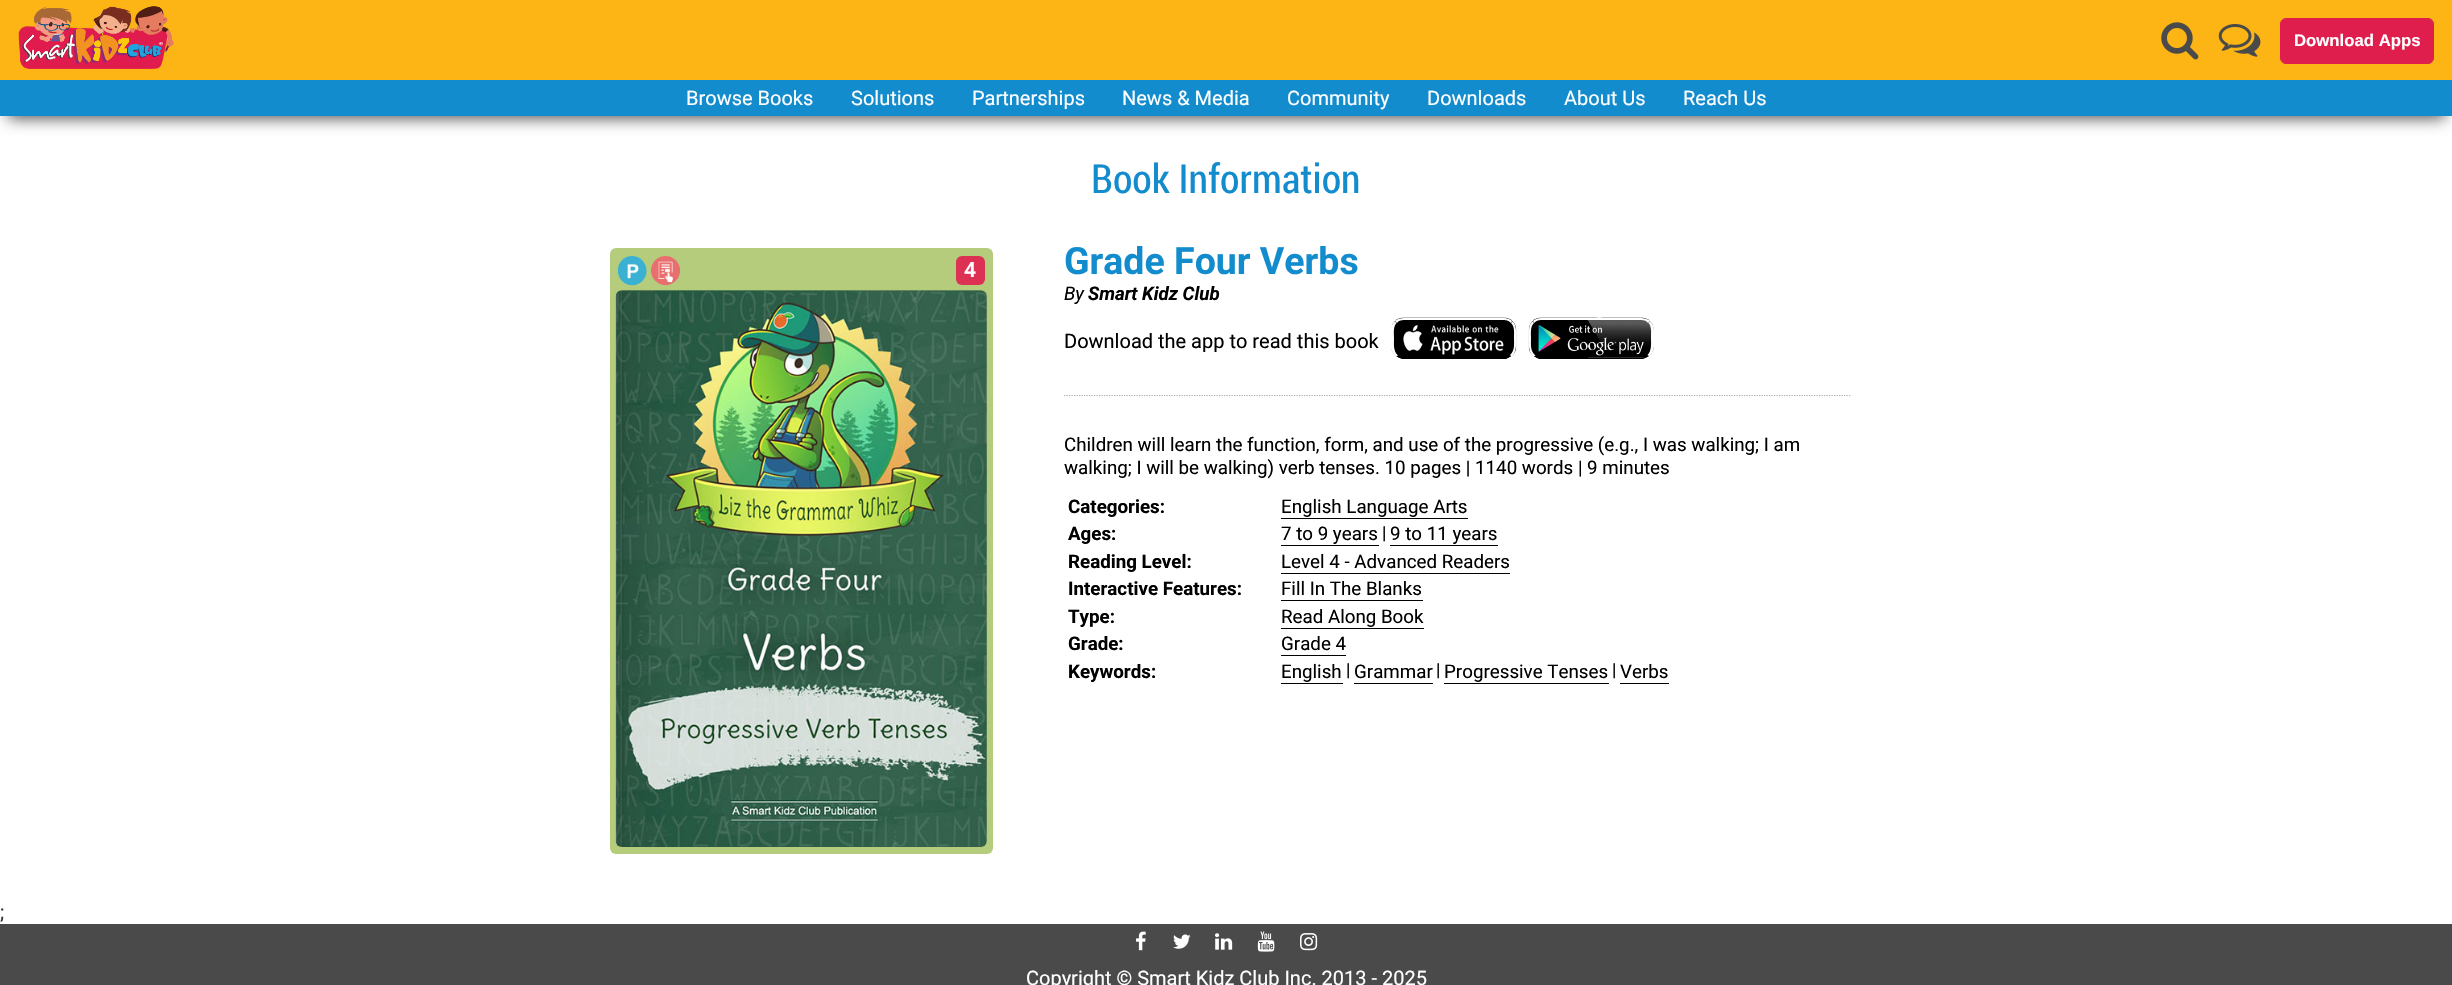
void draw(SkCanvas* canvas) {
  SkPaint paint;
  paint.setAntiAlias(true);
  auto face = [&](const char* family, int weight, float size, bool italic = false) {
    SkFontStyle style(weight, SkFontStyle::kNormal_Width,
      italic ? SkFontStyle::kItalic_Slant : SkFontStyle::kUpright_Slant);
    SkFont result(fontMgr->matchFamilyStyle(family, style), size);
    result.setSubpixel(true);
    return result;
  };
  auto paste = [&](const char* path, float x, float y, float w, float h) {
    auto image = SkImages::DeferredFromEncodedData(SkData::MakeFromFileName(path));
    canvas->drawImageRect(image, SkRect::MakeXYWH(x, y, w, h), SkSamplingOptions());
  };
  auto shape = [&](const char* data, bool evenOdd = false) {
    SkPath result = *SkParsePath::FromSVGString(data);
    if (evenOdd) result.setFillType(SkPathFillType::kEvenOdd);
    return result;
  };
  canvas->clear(0xffffffff);
  paint.setColor(0xfffdb515);
  canvas->drawRect(SkRect::MakeXYWH(0, 0, 2452, 80), paint);
  paste("img/1.png", 18, 6, 156, 63);
  paste("img/2.png", 2161, 22, 38, 38);
  paste("img/3.png", 2218, 24, 43, 33);
  paint.setColor(0xffe01e4e);
  canvas->drawRoundRect(SkRect::MakeXYWH(2280.5f, 18.5f, 153, 45), 5.5f, 5.5f, paint);
  paint.setStroke(true);
  paint.setStrokeWidth(1);
  canvas->drawRoundRect(SkRect::MakeXYWH(2280.5f, 18.5f, 153, 45), 5.5f, 5.5f, paint);
  paint.setStroke(false);
  paint.setColor(0xff4a4a4a);
  paint.setMaskFilter(SkMaskFilter::MakeBlur(kNormal_SkBlurStyle, 8));
  canvas->drawRect(SkRect::MakeXYWH(8, 96, 2437, 22), paint);
  paint.setMaskFilter(nullptr);
  paint.setColor(0xff138cce);
  canvas->drawRect(SkRect::MakeXYWH(0, 80, 2452, 36), paint);
  paint.setColor(0xffb4cc7c);
  canvas->drawRoundRect(SkRect::MakeXYWH(610, 248, 383, 606), 6, 6, paint);
  paint.setColor(0xff3ab1d3);
  canvas->drawRoundRect(SkRect::MakeXYWH(618, 256, 28, 29), 14, 14, paint);
  paste("img/4.png", 618, 259, 29, 27);
  paint.setColor(0xffe96f6f);
  canvas->drawCircle(665.5f, 270.5f, 14.5f, paint);
  paste("img/5.png", 658, 261, 22, 25);
  paint.setColor(0xffdc3153);
  canvas->drawRoundRect(SkRect::MakeXYWH(956, 256, 29, 29), 6, 6, paint);
  paste("img/6.png", 615, 290, 372, 557);
  paste("img/7.png", 1391, 317, 126, 42);
  paint.setColor(0xffffffff);
  canvas->drawPath(shape("M1404 318C1401 318 1397 319 1395 321L1397 323C1398 321 1401 320 1404 320H1504C1507 320 1509 321 1511 323L1512 321C1510 319 1507 318 1504 318Z"), paint);
  canvas->drawPath(shape("M1512.5 321.5C1517 325.5 1516 332.5 1516 338C1516 344.5 1517 351.5 1511.5 356.5L1509.5 355.5C1515 351 1514 344.5 1514 338C1514 333 1515 327 1511 323Z"), paint);
  paint.setColor(0xff000000);
  canvas->drawPath(shape("M1402 359L1396 356L1398 355C1399 357 1402 358 1404 358H1504C1506 358 1508 357 1510 355L1511 356L1506 359Z"), paint);
  paint.setColor(0xffffffff);
  canvas->drawPath(shape("M1391 327.5C1392 325 1393 323 1395 321.5L1396.5 323C1393 327 1394 333 1394 338C1394 344 1393 351 1398 355.5L1396 356.5C1393.5 354.5 1392 351.5 1391 348.5Z"), paint);
  paste("img/8.png", 1528, 317, 126, 42);
  canvas->drawPath(shape("M1541 318C1538 318 1535 319 1533 321L1534 323C1536 321 1538 320 1541 320H1641C1644 320 1647 321 1648 323L1650 321C1648 319 1644 318 1641 318Z"), paint);
  canvas->drawPath(shape("M1650 321.5C1655 325.5 1654 331.5 1654 338C1654 345 1655 351.5 1649 356.5L1647 355.5C1652 351 1651 344 1651 338C1651 333 1652 327 1648.5 323Z"), paint);
  paint.setColor(0xff000000);
  canvas->drawPath(shape("M1539 359L1534 356L1535 355C1537 357 1539 358 1541 358H1641C1643 358 1646 357 1647 355L1649 356C1647 357 1645 358 1643 359Z"), paint);
  paint.setColor(0xffffffff);
  canvas->drawPath(shape("M1532.5 321.5C1528 325.5 1529 332.5 1529 338C1529 344.5 1528 351.5 1533.5 356.5L1535.5 355.5C1530 351 1531 344.5 1531 338C1531 333 1530 327 1534 323Z"), paint);
  paint.setStroke(true);
  paint.setStrokeWidth(1.2f);
  paint.setColor(0xffa9a9a9);
  paint.setPathEffect(SkDashPathEffect::Make({{1.25f, 1.25f}}, 0));
  canvas->drawPath(shape("M1064 395.5H1851"), paint);
  paint.setPathEffect(nullptr);
  paint.setStroke(false);
  {
    const struct { float x, y, w, h; SkColor color; } items[] = {
      {1281, 518, 187, 1, 0xff000000},
      {1281, 545, 98, 1, 0xff000000},
      {1390, 545, 108, 1, 0xff000000},
      {1281, 573, 229, 1, 0xff000000},
      {1281, 600, 142, 1, 0xff000000},
      {1281, 628, 143, 1, 0xff000000},
      {1281, 655, 65, 1, 0xff000000},
      {1281, 683, 62, 1, 0xff000000},
      {1354, 683, 79, 1, 0xff000000},
      {1444, 683, 165, 1, 0xff000000},
      {1620, 683, 49, 1, 0xff000000},
      {0, 924, 2452, 61, 0xff4a4a4a},
    };
    for (auto [x, y, w, h, color] : items) {
      paint.setColor(color);
      canvas->drawRect(SkRect::MakeXYWH(x, y, w, h), paint);
    }
  }
  paste("img/9.png", 1136, 931, 10, 20);
  paste("img/10.png", 1173, 934, 18, 15);
  paste("img/11.png", 1215, 933, 18, 17);
  paste("img/12.png", 1257, 931, 18, 21);
  paste("img/13.png", 1300, 933, 18, 18);
  auto f0 = face("Liberation Sans", 700, 16.75f);
  paint.setColor(0xffffffff);
  canvas->drawString("Download Apps", 2294, 46, f0, paint);
  auto f1 = face("Roboto", 400, 20);
  {
    const struct { const char* s; float x, y; } items[] = {
      {"Browse Books", 686, 105},
      {"Solutions", 851, 105},
      {"Partnerships", 972, 105},
      {"News & Media", 1122, 105},
      {"Community", 1287, 105},
      {"Downloads", 1427, 105},
      {"About Us", 1564, 105},
      {"Reach Us", 1683, 105},
    };
    for (auto [s, x, y] : items) {
      canvas->drawString(s, x, y, f1, paint);
    }
  }
  auto f2 = face("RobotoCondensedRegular", 400, 40);
  paint.setColor(0xff138cce);
  canvas->drawString("Book Information", 1091, 193, f2, paint);
  auto f3 = face("Roboto", 600, 21);
  paint.setColor(0xffffffff);
  canvas->drawString("4", 964, 277, f3, paint);
  auto f4 = face("Roboto", 700, 37.5f);
  paint.setColor(0xff138cce);
  canvas->drawString("Grade Four Verbs", 1064, 274, f4, paint);
  auto f5 = face("Roboto", 400, 18.75f, true);
  paint.setColor(0xff000000);
  canvas->drawString("By", 1064, 300, f5, paint);
  auto f6 = face("Roboto", 700, 18.75f, true);
  canvas->drawString("Smart Kidz Club", 1088, 300, f6, paint);
  canvas->drawString("Download the app to read this book", 1064, 348, f1, paint);
  auto f7 = face("Roboto", 400, 18.75f);
  canvas->drawString("Children will learn the function, form, and use of the progressive (e.g., I was walking; I am", 1064, 451, f7, paint);
  canvas->drawString("walking; I will be walking) verb tenses. 10 pages | 1140 words | 9 minutes", 1064, 474, f7, paint);
  auto f8 = face("Roboto", 700, 18.75f);
  canvas->drawString("Categories:", 1068, 513, f8, paint);
  canvas->drawString("English Language Arts", 1281, 513, f7, paint);
  canvas->drawString("Ages:", 1068, 540, f8, paint);
  canvas->drawString("7 to 9 years", 1281, 540, f7, paint);
  auto f9 = face("Roboto", 400, 18);
  canvas->drawString("|", 1382, 539, f9, paint);
  canvas->drawString("9 to 11 years", 1390, 540, f7, paint);
  canvas->drawString("Reading Level:", 1068, 568, f8, paint);
  canvas->drawString("Level 4 - Advanced Readers", 1281, 568, f7, paint);
  canvas->drawString("Interactive Features:", 1068, 595, f8, paint);
  canvas->drawString("Fill In The Blanks", 1281, 595, f7, paint);
  canvas->drawString("Type:", 1068, 623, f8, paint);
  canvas->drawString("Read Along Book", 1281, 623, f7, paint);
  canvas->drawString("Grade:", 1068, 650, f8, paint);
  canvas->drawString("Grade 4", 1281, 650, f7, paint);
  canvas->drawString("Keywords:", 1068, 678, f8, paint);
  canvas->drawString("English", 1281, 678, f7, paint);
  canvas->drawString("|", 1346, 676, f9, paint);
  canvas->drawString("Grammar", 1354, 678, f7, paint);
  canvas->drawString("|", 1436, 676, f9, paint);
  canvas->drawString("Progressive Tenses", 1444, 678, f7, paint);
  canvas->drawString("|", 1612, 676, f9, paint);
  canvas->drawString("Verbs", 1620, 678, f7, paint);
  paint.setColor(0xff333333);
  canvas->drawString(";", 0, 919, f1, paint);
  paint.setColor(0xffffffff);
  canvas->drawString("Copyright © Smart Kidz Club Inc. 2013 - 2025", 1026, 985, f1, paint);
}
